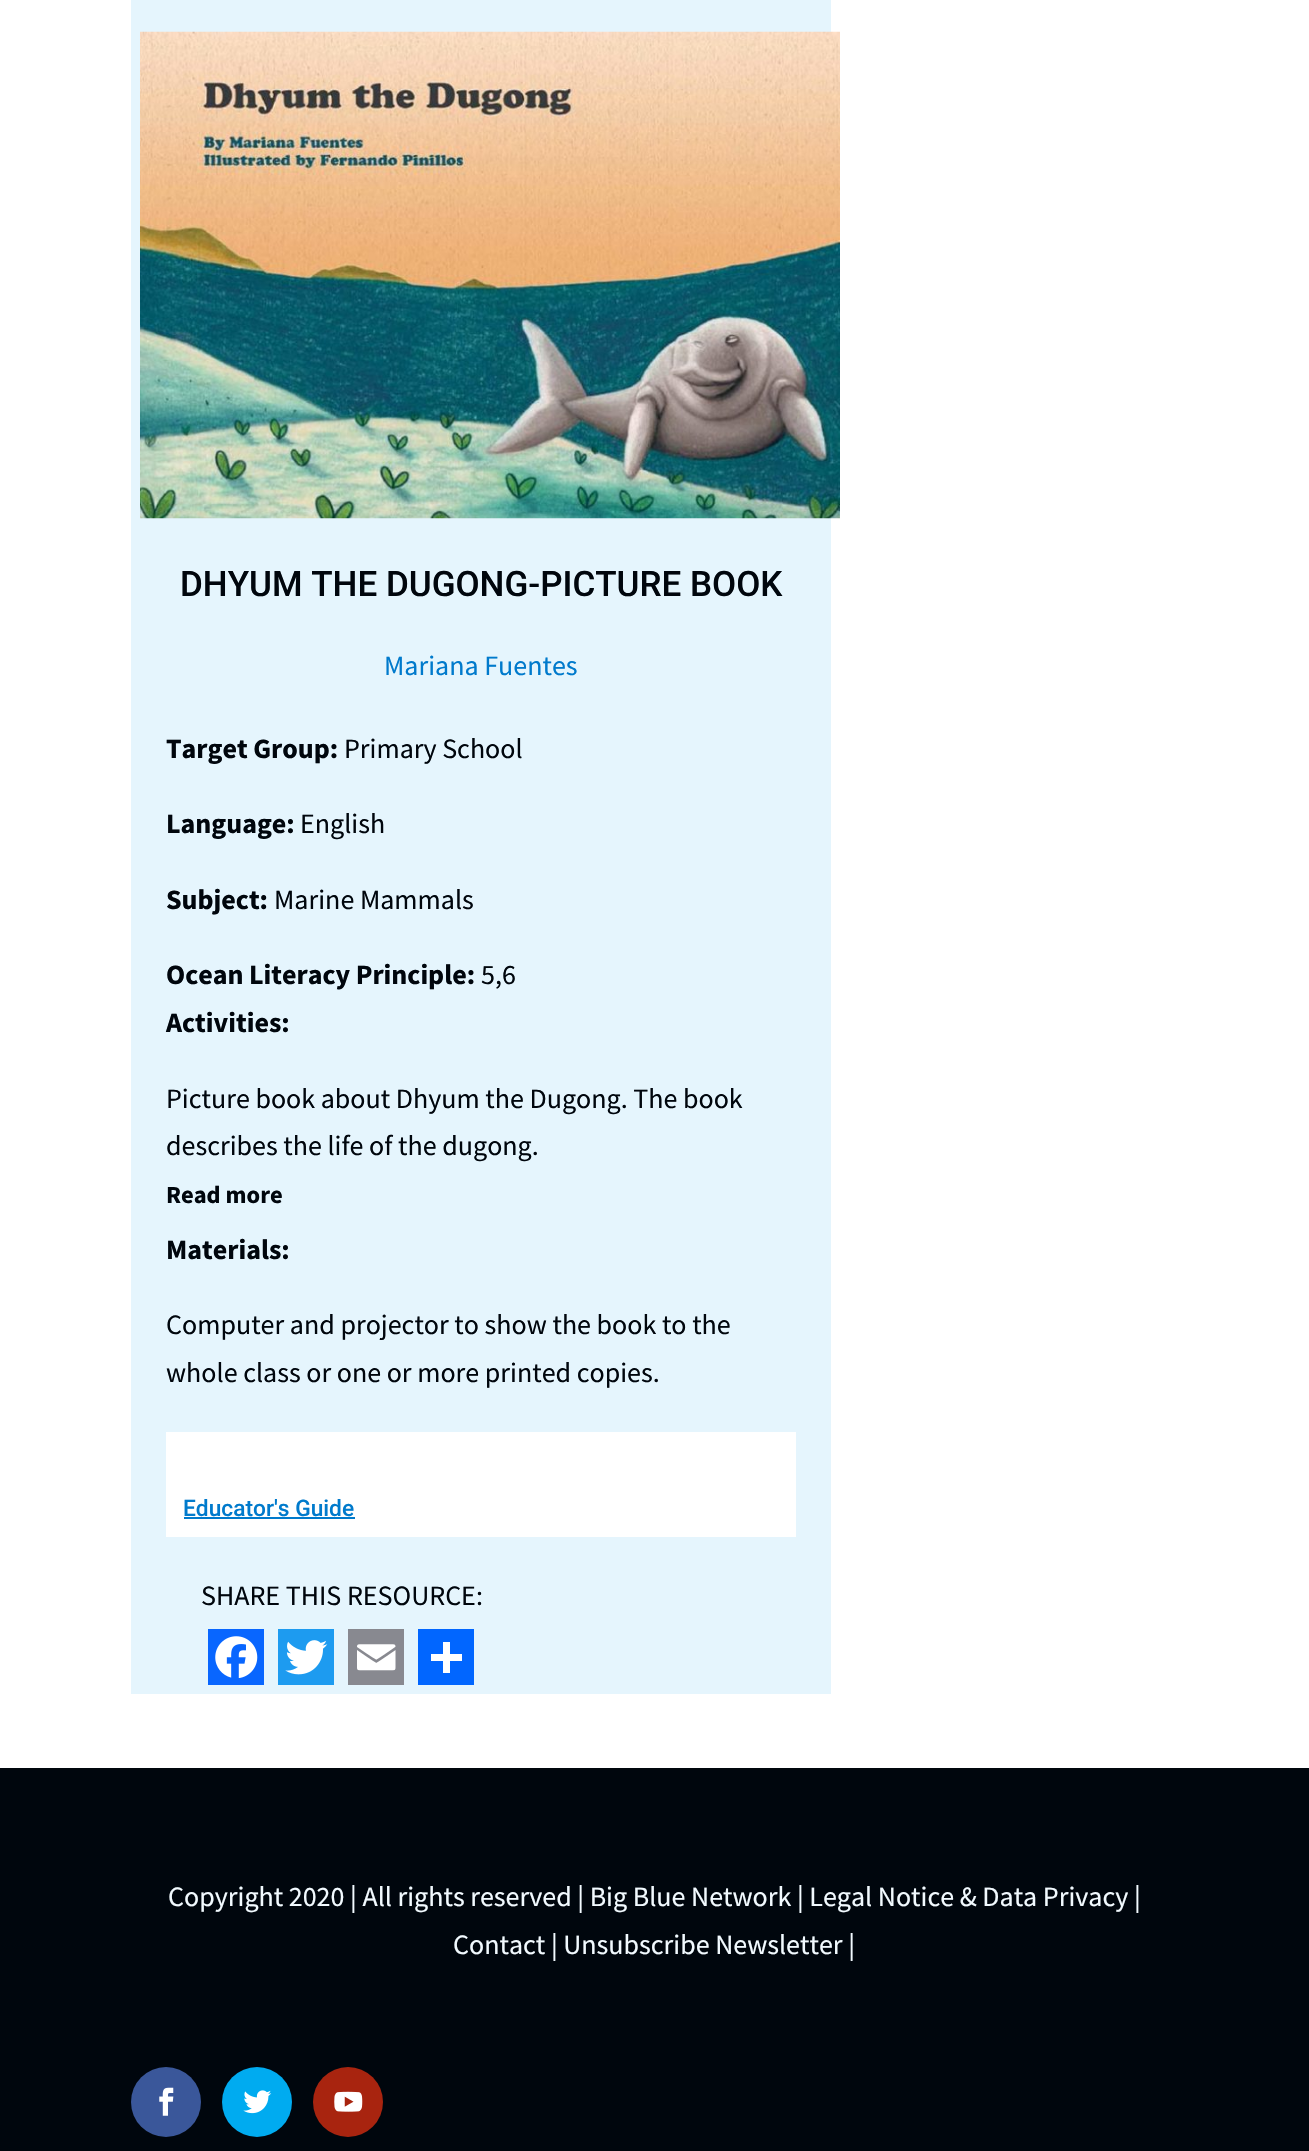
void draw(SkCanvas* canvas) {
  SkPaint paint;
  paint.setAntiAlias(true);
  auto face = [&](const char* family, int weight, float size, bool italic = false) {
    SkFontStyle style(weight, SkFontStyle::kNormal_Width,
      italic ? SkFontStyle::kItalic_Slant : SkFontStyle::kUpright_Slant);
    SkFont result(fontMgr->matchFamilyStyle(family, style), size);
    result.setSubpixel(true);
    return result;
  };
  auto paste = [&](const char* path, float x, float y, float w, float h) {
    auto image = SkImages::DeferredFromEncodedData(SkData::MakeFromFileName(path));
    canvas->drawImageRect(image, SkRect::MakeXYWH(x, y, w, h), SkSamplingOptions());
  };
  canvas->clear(0xffffffff);
  paint.setColor(0xffe5f5fd);
  canvas->drawRect(SkRect::MakeXYWH(131, 0, 700, 1694), paint);
  paste("img/1.png", 140, 31, 700, 488);
  {
    const struct { float x, y, w, h; SkColor color; } items[] = {
      {166, 1432, 630, 105, 0xffffffff},
      {184, 1517, 171, 2, 0xff007acc},
      {208, 1629, 56, 56, 0xff0866ff},
    };
    for (auto [x, y, w, h, color] : items) {
      paint.setColor(color);
      canvas->drawRect(SkRect::MakeXYWH(x, y, w, h), paint);
    }
  }
  paste("img/2.png", 215, 1636, 43, 42);
  paint.setColor(0xff1d9bf0);
  canvas->drawRect(SkRect::MakeXYWH(278, 1629, 56, 56), paint);
  paste("img/3.png", 285, 1640, 43, 35);
  paint.setColor(0xff888990);
  canvas->drawRect(SkRect::MakeXYWH(348, 1629, 56, 56), paint);
  paste("img/4.png", 357, 1644, 39, 27);
  {
    const struct { float x, y, w, h; SkColor color; } items[] = {
      {418, 1629, 56, 56, 0xff0166ff},
      {443, 1642, 7, 31, 0xffffffff},
      {431, 1654, 31, 7, 0xffffffff},
      {0, 1768, 1309, 383, 0xff00060d},
    };
    for (auto [x, y, w, h, color] : items) {
      paint.setColor(color);
      canvas->drawRect(SkRect::MakeXYWH(x, y, w, h), paint);
    }
  }
  paint.setColor(0xff3a579a);
  canvas->drawCircle(166, 2102, 35, paint);
  paste("img/5.png", 159, 2087, 15, 29);
  paint.setColor(0xff00abf0);
  canvas->drawCircle(257, 2102, 35, paint);
  paste("img/6.png", 243, 2090, 29, 24);
  paint.setColor(0xffa8240f);
  canvas->drawCircle(348, 2102, 35, paint);
  paste("img/7.png", 334, 2091, 29, 21);
  auto f0 = face("Roboto", 500, 35);
  paint.setColor(0xff00060d);
  canvas->drawString("DHYUM THE DUGONG-PICTURE BOOK", 180, 596, f0, paint);
  auto f1 = face("Source Sans Pro", 400, 28);
  paint.setColor(0xff007acc);
  canvas->drawString("Mariana Fuentes", 384, 675, f1, paint);
  auto f2 = face("Source Sans Pro", 700, 28);
  paint.setColor(0xff00060d);
  canvas->drawString("Target Group:", 166, 758, f2, paint);
  canvas->drawString("Primary School", 344, 758, f1, paint);
  canvas->drawString("Language:", 166, 833, f2, paint);
  canvas->drawString("English", 300, 833, f1, paint);
  canvas->drawString("Subject:", 166, 909, f2, paint);
  canvas->drawString("Marine Mammals", 274, 909, f1, paint);
  canvas->drawString("Ocean Literacy Principle:", 166, 984, f2, paint);
  canvas->drawString("5,6", 481, 984, f1, paint);
  canvas->drawString("Activities:", 166, 1032, f2, paint);
  canvas->drawString("Picture book about Dhyum the Dugong. The book", 166, 1108, f1, paint);
  canvas->drawString("describes the life of the dugong.", 166, 1155, f1, paint);
  auto f3 = face("Source Sans Pro", 700, 24.5f);
  canvas->drawString("Read more", 166, 1203, f3, paint);
  canvas->drawString("Materials:", 166, 1259, f2, paint);
  canvas->drawString("Computer and projector to show the book to the", 166, 1334, f1, paint);
  canvas->drawString("whole class or one or more printed copies.", 166, 1382, f1, paint);
  auto f4 = face("Roboto", 500, 22.75f);
  paint.setColor(0xff007acc);
  canvas->drawString("Educator's Guide", 183, 1516, f4, paint);
  paint.setColor(0xff00060d);
  canvas->drawString("SHARE THIS RESOURCE:", 201, 1605, f1, paint);
  paint.setColor(0xfff2faff);
  canvas->drawString("Copyright 2020 | All rights reserved | Big Blue Network | Legal Notice & Data Privacy |", 168, 1906, f1, paint);
  canvas->drawString("Contact | Unsubscribe Newsletter |", 453, 1954, f1, paint);
}
